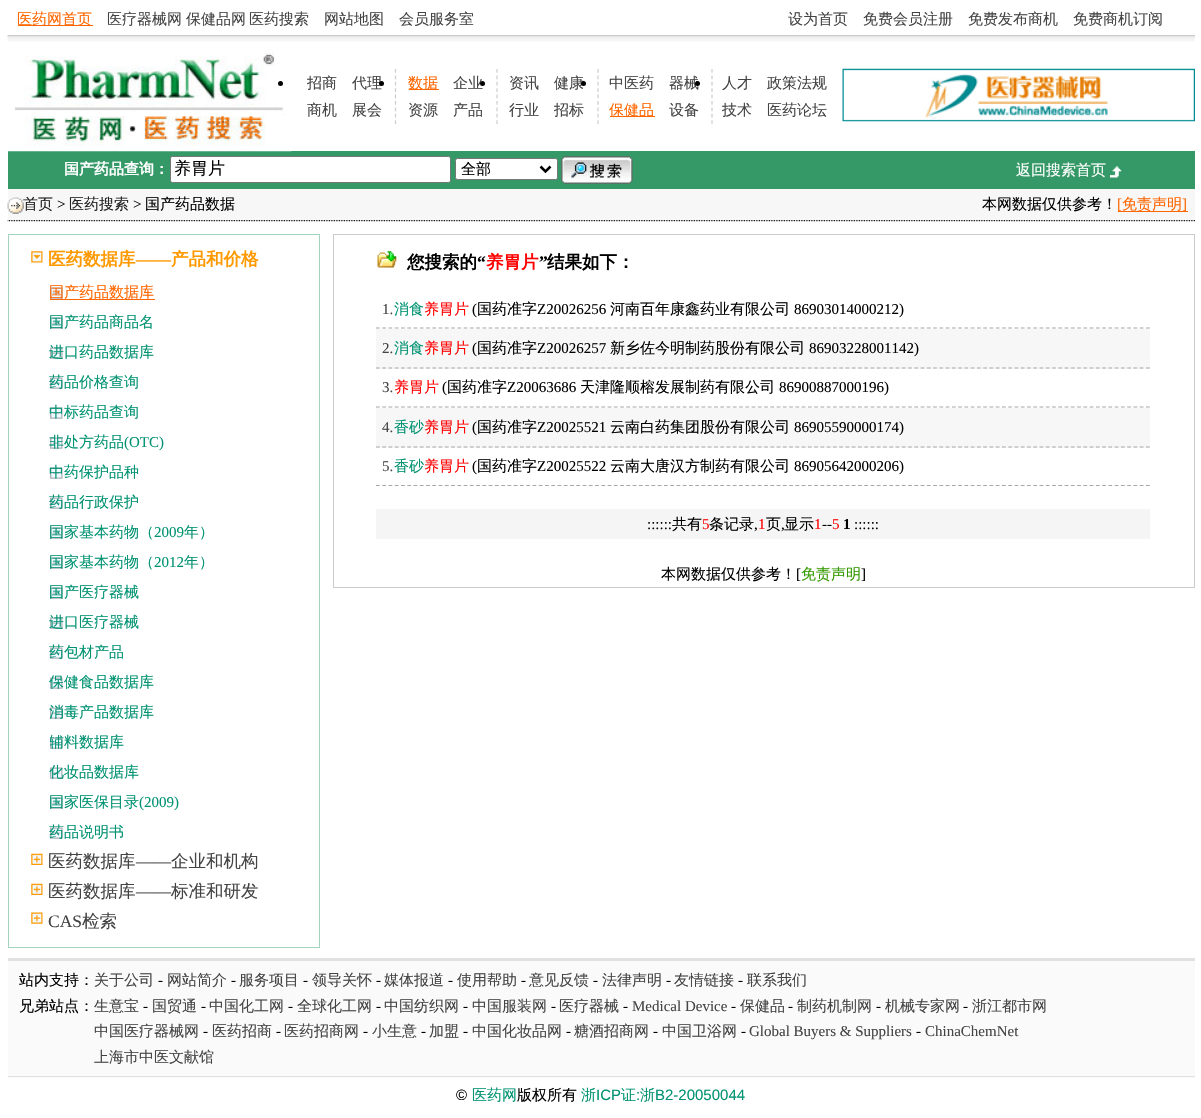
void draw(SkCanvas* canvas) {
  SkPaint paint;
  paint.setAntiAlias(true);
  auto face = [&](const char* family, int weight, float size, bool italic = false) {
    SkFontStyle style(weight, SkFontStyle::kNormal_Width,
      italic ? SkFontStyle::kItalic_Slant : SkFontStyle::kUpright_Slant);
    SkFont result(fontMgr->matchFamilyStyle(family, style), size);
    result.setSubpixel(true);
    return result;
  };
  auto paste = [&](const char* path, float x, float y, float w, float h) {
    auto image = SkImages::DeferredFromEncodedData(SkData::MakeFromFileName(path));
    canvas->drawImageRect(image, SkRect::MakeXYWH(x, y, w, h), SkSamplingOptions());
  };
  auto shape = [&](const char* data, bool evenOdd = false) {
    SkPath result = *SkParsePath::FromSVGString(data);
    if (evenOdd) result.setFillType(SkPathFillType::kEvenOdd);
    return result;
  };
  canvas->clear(0xffffffff);
  paste("img/1.png", 7, 35, 1188, 7);
  paint.setColor(0xffff6600);
  canvas->drawRect(SkRect::MakeXYWH(18, 25, 75, 1), paint);
  paint.setColor(0xff359967);
  canvas->drawRect(SkRect::MakeXYWH(8, 151, 1187, 38), paint);
  paste("img/2.png", 8, 49, 284, 103);
  paint.setStroke(true);
  paint.setStrokeWidth(1.2f);
  paint.setColor(0xffcccccc);
  paint.setPathEffect(SkDashPathEffect::Make({{3.75f, 2.65f}}, 0));
  canvas->drawPath(shape("M395.5 69V124"), paint);
  paint.setPathEffect(nullptr);
  paint.setStroke(false);
  paint.setColor(0xff000000);
  canvas->drawCircle(280.5f, 83.5f, 2.5f, paint);
  paint.setStroke(true);
  paint.setColor(0xffcccccc);
  paint.setPathEffect(SkDashPathEffect::Make({{3.75f, 2.65f}}, 0));
  canvas->drawPath(shape("M497 69V124"), paint);
  paint.setPathEffect(nullptr);
  paint.setStroke(false);
  paint.setColor(0xffff6600);
  canvas->drawRect(SkRect::MakeXYWH(409, 89, 30, 1), paint);
  paint.setStroke(true);
  paint.setColor(0xffcccccc);
  paint.setPathEffect(SkDashPathEffect::Make({{3.75f, 2.65f}}, 0));
  canvas->drawPath(shape("M598 69V124"), paint);
  paint.setPathEffect(nullptr);
  paint.setPathEffect(SkDashPathEffect::Make({{3.75f, 2.65f}}, 0));
  canvas->drawPath(shape("M712 69V124"), paint);
  paint.setPathEffect(nullptr);
  paint.setStroke(false);
  paint.setColor(0xffff6600);
  canvas->drawRect(SkRect::MakeXYWH(610, 116, 45, 1), paint);
  paste("img/3.png", 842, 68, 353, 54);
  paint.setColor(0xffffffff);
  canvas->drawRoundRect(SkRect::MakeXYWH(170.5f, 156.5f, 280, 26), 2, 2, paint);
  paint.setStroke(true);
  paint.setStrokeWidth(1);
  paint.setColor(0xff767676);
  canvas->drawRoundRect(SkRect::MakeXYWH(170.5f, 156.5f, 280, 26), 2, 2, paint);
  paint.setStroke(false);
  paint.setColor(0xffffffff);
  canvas->drawRoundRect(SkRect::MakeXYWH(455.5f, 158.5f, 102, 21), 2, 2, paint);
  paint.setStroke(true);
  paint.setColor(0xff767676);
  canvas->drawRoundRect(SkRect::MakeXYWH(455.5f, 158.5f, 102, 21), 2, 2, paint);
  paint.setStrokeWidth(2.5f);
  paint.setColor(0xff000000);
  canvas->drawPath(shape("M540.5 166.5L545.5 171.5L550.5 166.5"), paint);
  paste("img/4.png", 561, 156, 72, 28);
  paste("img/5.png", 1110, 166, 12, 12);
  paint.setStroke(false);
  paint.setColor(0xfff7f7f7);
  canvas->drawRect(SkRect::MakeXYWH(8, 189, 1187, 32), paint);
  paste("img/6.png", 7, 197, 17, 17);
  paint.setColor(0xffff6600);
  canvas->drawRect(SkRect::MakeXYWH(1118, 211, 70, 1), paint);
  paste("img/7.png", 7, 220, 1188, 2);
  paint.setStroke(true);
  paint.setStrokeWidth(1);
  paint.setColor(0xffa4d4be);
  canvas->drawRect(SkRect::MakeXYWH(8.5f, 234.5f, 311, 713), paint);
  paste("img/8.png", 31, 251, 12, 12);
  paste("img/9.png", 50, 287, 13, 12);
  paint.setStroke(false);
  paint.setColor(0xffff6600);
  canvas->drawRect(SkRect::MakeXYWH(50, 299, 105, 1), paint);
  paste("img/10.png", 50, 317, 13, 12);
  paste("img/10.png", 50, 347, 13, 12);
  paste("img/10.png", 50, 377, 13, 12);
  paste("img/10.png", 50, 407, 13, 12);
  paste("img/10.png", 50, 437, 13, 12);
  paste("img/10.png", 50, 467, 13, 12);
  paste("img/10.png", 50, 497, 13, 12);
  paste("img/10.png", 50, 527, 13, 12);
  paste("img/10.png", 50, 557, 13, 12);
  paste("img/11.png", 50, 587, 13, 12);
  paste("img/10.png", 50, 617, 13, 12);
  paste("img/10.png", 50, 647, 13, 12);
  paste("img/10.png", 50, 677, 13, 12);
  paste("img/10.png", 50, 707, 13, 12);
  paste("img/10.png", 50, 737, 13, 12);
  paste("img/10.png", 50, 767, 13, 12);
  paste("img/10.png", 50, 797, 13, 12);
  paste("img/10.png", 50, 827, 13, 12);
  paste("img/12.png", 31, 853, 12, 12);
  paste("img/12.png", 31, 883, 12, 12);
  paste("img/13.png", 31, 912, 12, 12);
  paint.setStroke(true);
  paint.setColor(0xffcccccc);
  canvas->drawRect(SkRect::MakeXYWH(333.5f, 234.5f, 861, 353), paint);
  paste("img/14.png", 377, 251, 20, 17);
  paint.setStrokeWidth(1.2f);
  paint.setColor(0xffa6a6a6);
  paint.setPathEffect(SkDashPathEffect::Make({{3.75f, 2.51f}}, 0));
  canvas->drawPath(shape("M376 328H1150"), paint);
  paint.setPathEffect(nullptr);
  paint.setStroke(false);
  paint.setColor(0xfff7f7f7);
  canvas->drawRect(SkRect::MakeXYWH(376, 329, 774, 40), paint);
  paint.setStroke(true);
  paint.setColor(0xffa6a6a6);
  paint.setPathEffect(SkDashPathEffect::Make({{3.75f, 2.51f}}, 0));
  canvas->drawPath(shape("M376 368H1150"), paint);
  paint.setPathEffect(nullptr);
  paint.setPathEffect(SkDashPathEffect::Make({{3.75f, 2.51f}}, 0));
  canvas->drawPath(shape("M376 407H1150"), paint);
  paint.setPathEffect(nullptr);
  paint.setStroke(false);
  paint.setColor(0xfff7f7f7);
  canvas->drawRect(SkRect::MakeXYWH(376, 408, 774, 40), paint);
  paint.setStroke(true);
  paint.setColor(0xffa6a6a6);
  paint.setPathEffect(SkDashPathEffect::Make({{3.75f, 2.51f}}, 0));
  canvas->drawPath(shape("M376 447H1150"), paint);
  paint.setPathEffect(nullptr);
  paint.setPathEffect(SkDashPathEffect::Make({{3.75f, 2.51f}}, 0));
  canvas->drawPath(shape("M376 485.5H1150"), paint);
  paint.setPathEffect(nullptr);
  paint.setStroke(false);
  {
    const struct { float x, y, w, h; SkColor color; } items[] = {
      {376, 509, 774, 30, 0xfff5f5f5},
      {8, 958, 1187, 3, 0xffe1e1e1},
      {8, 961, 1187, 117, 0xfffafafa},
      {8, 1076, 1187, 1, 0xffe1e1e1},
    };
    for (auto [x, y, w, h, color] : items) {
      paint.setColor(color);
      canvas->drawRect(SkRect::MakeXYWH(x, y, w, h), paint);
    }
  }
  auto f0 = face("WenQuanYi Zen Hei", 500, 15);
  paint.setColor(0xffff6600);
  canvas->drawString("医药网首页", 17, 24, f0, paint);
  paint.setColor(0xff444444);
  {
    const struct { const char* s; float x, y; } items[] = {
      {"医疗器械网", 107, 24},
      {"保健品网", 186, 24},
      {"医药搜索", 249, 24},
      {"网站地图", 324, 24},
      {"会员服务室", 399, 24},
      {"设为首页", 788, 24},
      {"免费会员注册", 863, 24},
      {"免费发布商机", 968, 24},
      {"免费商机订阅", 1073, 24},
      {"招商", 307, 88},
      {"代理", 352, 88},
      {"商机", 307, 115},
      {"展会", 352, 115},
    };
    for (auto [s, x, y] : items) {
      canvas->drawString(s, x, y, f0, paint);
    }
  }
  paint.setColor(0xff000000);
  canvas->drawCircle(381.5f, 83.5f, 2.5f, paint);
  paint.setColor(0xffff6600);
  canvas->drawString("数据", 408, 88, f0, paint);
  paint.setColor(0xff444444);
  {
    const struct { const char* s; float x, y; } items[] = {
      {"企业", 453, 88},
      {"资源", 408, 115},
      {"产品", 453, 115},
    };
    for (auto [s, x, y] : items) {
      canvas->drawString(s, x, y, f0, paint);
    }
  }
  paint.setColor(0xff000000);
  canvas->drawCircle(482.5f, 83.5f, 2.5f, paint);
  paint.setColor(0xff444444);
  {
    const struct { const char* s; float x, y; } items[] = {
      {"资讯", 509, 88},
      {"健康", 554, 88},
      {"行业", 509, 115},
      {"招标", 554, 115},
    };
    for (auto [s, x, y] : items) {
      canvas->drawString(s, x, y, f0, paint);
    }
  }
  paint.setColor(0xff000000);
  canvas->drawCircle(583.5f, 83.5f, 2.5f, paint);
  paint.setColor(0xff444444);
  canvas->drawString("中医药", 609, 88, f0, paint);
  canvas->drawString("器械", 669, 88, f0, paint);
  paint.setColor(0xffff6600);
  canvas->drawString("保健品", 609, 115, f0, paint);
  paint.setColor(0xff444444);
  canvas->drawString("设备", 669, 115, f0, paint);
  paint.setColor(0xff000000);
  canvas->drawCircle(697.5f, 83.5f, 2.5f, paint);
  paint.setColor(0xff444444);
  {
    const struct { const char* s; float x, y; } items[] = {
      {"人才", 722, 88},
      {"政策法规", 767, 88},
      {"技术", 722, 115},
      {"医药论坛", 767, 115},
    };
    for (auto [s, x, y] : items) {
      canvas->drawString(s, x, y, f0, paint);
    }
  }
  auto f1 = face("WenQuanYi Zen Hei", 700, 15);
  paint.setColor(0xffffffff);
  canvas->drawString("国产药品查询：", 64, 174, f1, paint);
  auto f2 = face("WenQuanYi Zen Hei", 500, 17);
  paint.setColor(0xff000000);
  canvas->drawString("养胃片", 174, 174, f2, paint);
  canvas->drawString("全部", 461, 174, f0, paint);
  paint.setColor(0xffffffff);
  canvas->drawString("返回搜索首页", 1016, 175, f0, paint);
  paint.setColor(0xff222222);
  canvas->drawString("首页", 23, 209, f0, paint);
  auto f3 = face("Liberation Serif", 400, 15);
  paint.setColor(0xff000000);
  canvas->drawString(">", 57, 209, f3, paint);
  paint.setColor(0xff222222);
  canvas->drawString("医药搜索", 69, 209, f0, paint);
  paint.setColor(0xff000000);
  canvas->drawString(">", 133, 209, f3, paint);
  canvas->drawString("国产药品数据", 145, 209, f0, paint);
  canvas->drawString("本网数据仅供参考！", 982, 209, f0, paint);
  paint.setColor(0xffff6600);
  canvas->drawString("[", 1117, 209, f3, paint);
  canvas->drawString("免责声明", 1122, 209, f0, paint);
  canvas->drawString("]", 1182, 209, f3, paint);
  auto f4 = face("WenQuanYi Zen Hei", 700, 17.5f);
  paint.setColor(0xffff9900);
  canvas->drawString("医药数据库", 48, 265, f4, paint);
  auto f5 = face("Liberation Serif", 700, 17.5f);
  canvas->drawString("——", 136, 265, f5, paint);
  canvas->drawString("产品和价格", 171, 265, f4, paint);
  paint.setColor(0xffff6600);
  canvas->drawString("国产药品数据库", 49, 297, f0, paint);
  paint.setColor(0xff009271);
  {
    const struct { const char* s; float x, y; } items[] = {
      {"国产药品商品名", 49, 327},
      {"进口药品数据库", 49, 357},
      {"药品价格查询", 49, 387},
      {"中标药品查询", 49, 417},
      {"非处方药品", 49, 447},
    };
    for (auto [s, x, y] : items) {
      canvas->drawString(s, x, y, f0, paint);
    }
  }
  canvas->drawString("(OTC)", 124, 447, f3, paint);
  {
    const struct { const char* s; float x, y; } items[] = {
      {"中药保护品种", 49, 477},
      {"药品行政保护", 49, 507},
      {"国家基本药物（", 49, 537},
    };
    for (auto [s, x, y] : items) {
      canvas->drawString(s, x, y, f0, paint);
    }
  }
  canvas->drawString("2009", 154, 537, f3, paint);
  canvas->drawString("年）", 184, 537, f0, paint);
  canvas->drawString("国家基本药物（", 49, 567, f0, paint);
  canvas->drawString("2012", 154, 567, f3, paint);
  {
    const struct { const char* s; float x, y; } items[] = {
      {"年）", 184, 567},
      {"国产医疗器械", 49, 597},
      {"进口医疗器械", 49, 627},
      {"药包材产品", 49, 657},
      {"保健食品数据库", 49, 687},
      {"消毒产品数据库", 49, 717},
    };
    for (auto [s, x, y] : items) {
      canvas->drawString(s, x, y, f0, paint);
    }
  }
  canvas->save();
  canvas->clipRect(SkRect::MakeXYWH(50, 728, 259, 30));
  canvas->drawString("辅料数据库", 49, 747, f0, paint);
  canvas->restore();
  canvas->drawString("化妆品数据库", 49, 777, f0, paint);
  canvas->drawString("国家医保目录", 49, 807, f0, paint);
  canvas->drawString("(2009)", 139, 807, f3, paint);
  canvas->drawString("药品说明书", 49, 837, f0, paint);
  auto f6 = face("WenQuanYi Zen Hei", 500, 17.5f);
  paint.setColor(0xff444444);
  canvas->drawString("医药数据库", 48, 867, f6, paint);
  auto f7 = face("Liberation Serif", 400, 17.5f);
  canvas->drawString("——", 136, 867, f7, paint);
  canvas->drawString("企业和机构", 171, 867, f6, paint);
  canvas->drawString("医药数据库", 48, 897, f6, paint);
  canvas->drawString("——", 136, 897, f7, paint);
  canvas->drawString("标准和研发", 171, 897, f6, paint);
  canvas->drawString("CAS", 48, 927, f7, paint);
  canvas->drawString("检索", 82, 927, f6, paint);
  paint.setColor(0xff000000);
  canvas->drawString("您搜索的", 407, 268, f4, paint);
  canvas->drawString("“", 477, 268, f5, paint);
  paint.setColor(0xffff0000);
  canvas->drawString("养胃片", 486, 268, f4, paint);
  paint.setColor(0xff000000);
  canvas->drawString("”", 539, 268, f5, paint);
  canvas->drawString("结果如下：", 547, 268, f4, paint);
  paint.setColor(0xff444444);
  canvas->drawString("1.", 382, 314, f3, paint);
  paint.setColor(0xff009271);
  canvas->drawString("消食", 394, 314, f0, paint);
  paint.setColor(0xffff0000);
  canvas->drawString("养胃片", 424, 314, f0, paint);
  paint.setColor(0xff000000);
  canvas->drawString("(", 472, 314, f3, paint);
  canvas->drawString("国药准字", 477, 314, f0, paint);
  canvas->drawString("Z20026256", 537, 314, f3, paint);
  canvas->drawString("河南百年康鑫药业有限公司", 610, 314, f0, paint);
  canvas->drawString("86903014000212)", 794, 314, f3, paint);
  paint.setColor(0xff444444);
  canvas->drawString("2.", 382, 353, f3, paint);
  paint.setColor(0xff009271);
  canvas->drawString("消食", 394, 353, f0, paint);
  paint.setColor(0xffff0000);
  canvas->drawString("养胃片", 424, 353, f0, paint);
  paint.setColor(0xff000000);
  canvas->drawString("(", 472, 353, f3, paint);
  canvas->drawString("国药准字", 477, 353, f0, paint);
  canvas->drawString("Z20026257", 537, 353, f3, paint);
  canvas->drawString("新乡佐今明制药股份有限公司", 610, 353, f0, paint);
  canvas->drawString("86903228001142)", 809, 353, f3, paint);
  paint.setColor(0xff444444);
  canvas->drawString("3.", 382, 392, f3, paint);
  paint.setColor(0xffff0000);
  canvas->drawString("养胃片", 394, 392, f0, paint);
  paint.setColor(0xff000000);
  canvas->drawString("(", 442, 392, f3, paint);
  canvas->drawString("国药准字", 447, 392, f0, paint);
  canvas->drawString("Z20063686", 507, 392, f3, paint);
  canvas->drawString("天津隆顺榕发展制药有限公司", 580, 392, f0, paint);
  canvas->drawString("86900887000196)", 779, 392, f3, paint);
  paint.setColor(0xff444444);
  canvas->drawString("4.", 382, 432, f3, paint);
  paint.setColor(0xff009271);
  canvas->drawString("香砂", 394, 432, f0, paint);
  paint.setColor(0xffff0000);
  canvas->drawString("养胃片", 424, 432, f0, paint);
  paint.setColor(0xff000000);
  canvas->drawString("(", 472, 432, f3, paint);
  canvas->drawString("国药准字", 477, 432, f0, paint);
  canvas->drawString("Z20025521", 537, 432, f3, paint);
  canvas->drawString("云南白药集团股份有限公司", 610, 432, f0, paint);
  canvas->drawString("86905590000174)", 794, 432, f3, paint);
  paint.setColor(0xff444444);
  canvas->drawString("5.", 382, 471, f3, paint);
  paint.setColor(0xff009271);
  canvas->drawString("香砂", 394, 471, f0, paint);
  paint.setColor(0xffff0000);
  canvas->drawString("养胃片", 424, 471, f0, paint);
  paint.setColor(0xff000000);
  canvas->drawString("(", 472, 471, f3, paint);
  canvas->drawString("国药准字", 477, 471, f0, paint);
  canvas->drawString("Z20025522", 537, 471, f3, paint);
  canvas->drawString("云南大唐汉方制药有限公司", 610, 471, f0, paint);
  canvas->drawString("86905642000206)", 794, 471, f3, paint);
  canvas->drawString("::::::", 647, 529, f3, paint);
  canvas->drawString("共有", 672, 529, f0, paint);
  paint.setColor(0xffff0000);
  canvas->drawString("5", 702, 529, f3, paint);
  paint.setColor(0xff000000);
  canvas->drawString("条记录", 709, 529, f0, paint);
  paint.setColor(0xffff0000);
  canvas->drawString("1", 758, 529, f3, paint);
  paint.setColor(0xff000000);
  canvas->drawString("页", 766, 529, f0, paint);
  canvas->drawString("显示", 784, 529, f0, paint);
  paint.setColor(0xffff0000);
  canvas->drawString("1", 814, 529, f3, paint);
  paint.setColor(0xff000000);
  canvas->drawString("--", 822, 529, f3, paint);
  paint.setColor(0xffff0000);
  canvas->drawString("5", 832, 529, f3, paint);
  auto f8 = face("Liberation Serif", 700, 15);
  paint.setColor(0xff000000);
  canvas->drawString("1", 843, 529, f8, paint);
  {
    const struct { const char* s; float x, y; } items[] = {
      {"::::::", 854, 529},
      {",", 754, 529},
      {",", 781, 529},
    };
    for (auto [s, x, y] : items) {
      canvas->drawString(s, x, y, f3, paint);
    }
  }
  canvas->drawString("本网数据仅供参考！", 661, 579, f0, paint);
  canvas->drawString("[", 796, 579, f3, paint);
  paint.setColor(0xff339900);
  canvas->drawString("免责声明", 801, 579, f0, paint);
  paint.setColor(0xff000000);
  canvas->drawString("]", 861, 579, f3, paint);
  canvas->drawString("站内支持：", 19, 985, f0, paint);
  paint.setColor(0xff444444);
  canvas->drawString("关于公司", 94, 985, f0, paint);
  paint.setColor(0xff000000);
  canvas->drawString("-", 158, 985, f3, paint);
  paint.setColor(0xff444444);
  canvas->drawString("网站简介", 167, 985, f0, paint);
  paint.setColor(0xff000000);
  canvas->drawString("-", 231, 985, f3, paint);
  paint.setColor(0xff444444);
  canvas->drawString("服务项目", 239, 985, f0, paint);
  paint.setColor(0xff000000);
  canvas->drawString("-", 303, 985, f3, paint);
  paint.setColor(0xff444444);
  canvas->drawString("领导关怀", 312, 985, f0, paint);
  paint.setColor(0xff000000);
  canvas->drawString("-", 376, 985, f3, paint);
  paint.setColor(0xff444444);
  canvas->drawString("媒体报道", 384, 985, f0, paint);
  paint.setColor(0xff000000);
  canvas->drawString("-", 448, 985, f3, paint);
  paint.setColor(0xff444444);
  canvas->drawString("使用帮助", 457, 985, f0, paint);
  paint.setColor(0xff000000);
  canvas->drawString("-", 521, 985, f3, paint);
  paint.setColor(0xff444444);
  canvas->drawString("意见反馈", 529, 985, f0, paint);
  paint.setColor(0xff000000);
  canvas->drawString("-", 593, 985, f3, paint);
  paint.setColor(0xff444444);
  canvas->drawString("法律声明", 602, 985, f0, paint);
  paint.setColor(0xff000000);
  canvas->drawString("-", 666, 985, f3, paint);
  paint.setColor(0xff444444);
  canvas->drawString("友情链接", 674, 985, f0, paint);
  paint.setColor(0xff000000);
  canvas->drawString("-", 738, 985, f3, paint);
  paint.setColor(0xff444444);
  canvas->drawString("联系我们", 747, 985, f0, paint);
  paint.setColor(0xff000000);
  canvas->drawString("兄弟站点：", 19, 1011, f0, paint);
  paint.setColor(0xff444444);
  canvas->drawString("生意宝", 94, 1011, f0, paint);
  paint.setColor(0xff000000);
  canvas->drawString("-", 143, 1011, f3, paint);
  paint.setColor(0xff444444);
  canvas->drawString("国贸通", 152, 1011, f0, paint);
  paint.setColor(0xff000000);
  canvas->drawString("-", 201, 1011, f3, paint);
  paint.setColor(0xff444444);
  canvas->drawString("中国化工网", 209, 1011, f0, paint);
  paint.setColor(0xff000000);
  canvas->drawString("-", 288, 1011, f3, paint);
  paint.setColor(0xff444444);
  canvas->drawString("全球化工网", 297, 1011, f0, paint);
  paint.setColor(0xff000000);
  canvas->drawString("-", 376, 1011, f3, paint);
  paint.setColor(0xff444444);
  canvas->drawString("中国纺织网", 384, 1011, f0, paint);
  paint.setColor(0xff000000);
  canvas->drawString("-", 463, 1011, f3, paint);
  paint.setColor(0xff444444);
  canvas->drawString("中国服装网", 472, 1011, f0, paint);
  paint.setColor(0xff000000);
  canvas->drawString("-", 551, 1011, f3, paint);
  paint.setColor(0xff444444);
  canvas->drawString("医疗器械", 559, 1011, f0, paint);
  paint.setColor(0xff000000);
  canvas->drawString("-", 623, 1011, f3, paint);
  paint.setColor(0xff444444);
  canvas->drawString("Medical Device", 632, 1011, f3, paint);
  paint.setColor(0xff000000);
  canvas->drawString("-", 731, 1011, f3, paint);
  paint.setColor(0xff444444);
  canvas->drawString("保健品", 740, 1011, f0, paint);
  paint.setColor(0xff000000);
  canvas->drawString("-", 788, 1011, f3, paint);
  paint.setColor(0xff444444);
  canvas->drawString("制药机制网", 797, 1011, f0, paint);
  paint.setColor(0xff000000);
  canvas->drawString("-", 876, 1011, f3, paint);
  paint.setColor(0xff444444);
  canvas->drawString("机械专家网", 885, 1011, f0, paint);
  paint.setColor(0xff000000);
  canvas->drawString("-", 963, 1011, f3, paint);
  paint.setColor(0xff444444);
  canvas->drawString("浙江都市网", 972, 1011, f0, paint);
  canvas->drawString("中国医疗器械网", 94, 1036, f0, paint);
  paint.setColor(0xff000000);
  canvas->drawString("-", 203, 1036, f3, paint);
  paint.setColor(0xff444444);
  canvas->drawString("医药招商", 212, 1036, f0, paint);
  paint.setColor(0xff000000);
  canvas->drawString("-", 276, 1036, f3, paint);
  paint.setColor(0xff444444);
  canvas->drawString("医药招商网", 284, 1036, f0, paint);
  paint.setColor(0xff000000);
  canvas->drawString("-", 363, 1036, f3, paint);
  paint.setColor(0xff444444);
  canvas->drawString("小生意", 372, 1036, f0, paint);
  paint.setColor(0xff000000);
  canvas->drawString("-", 421, 1036, f3, paint);
  paint.setColor(0xff444444);
  canvas->drawString("加盟", 429, 1036, f0, paint);
  paint.setColor(0xff000000);
  canvas->drawString("-", 463, 1036, f3, paint);
  paint.setColor(0xff444444);
  canvas->drawString("中国化妆品网", 472, 1036, f0, paint);
  paint.setColor(0xff000000);
  canvas->drawString("-", 566, 1036, f3, paint);
  paint.setColor(0xff444444);
  canvas->drawString("糖酒招商网", 574, 1036, f0, paint);
  paint.setColor(0xff000000);
  canvas->drawString("-", 653, 1036, f3, paint);
  paint.setColor(0xff444444);
  canvas->drawString("中国卫浴网", 662, 1036, f0, paint);
  paint.setColor(0xff000000);
  canvas->drawString("-", 741, 1036, f3, paint);
  paint.setColor(0xff444444);
  canvas->drawString("Global Buyers & Suppliers", 749, 1036, f3, paint);
  paint.setColor(0xff000000);
  canvas->drawString("-", 916, 1036, f3, paint);
  paint.setColor(0xff444444);
  canvas->drawString("ChinaChemNet", 925, 1036, f3, paint);
  canvas->drawString("上海市中医文献馆", 94, 1062, f0, paint);
  auto f9 = face("Liberation Sans", 400, 15);
  paint.setColor(0xff000000);
  canvas->drawString("©", 456, 1100, f9, paint);
  paint.setColor(0xff009271);
  canvas->drawString("医药网", 472, 1100, f0, paint);
  paint.setColor(0xff000000);
  canvas->drawString("版权所有", 517, 1100, f0, paint);
  paint.setColor(0xff009271);
  canvas->drawString("浙", 581, 1100, f0, paint);
  canvas->drawString("ICP", 596, 1100, f9, paint);
  canvas->drawString("证", 621, 1100, f0, paint);
  canvas->drawString(":", 636, 1100, f9, paint);
  canvas->drawString("浙", 640, 1100, f0, paint);
  canvas->drawString("B2-20050044", 655, 1100, f9, paint);
}
